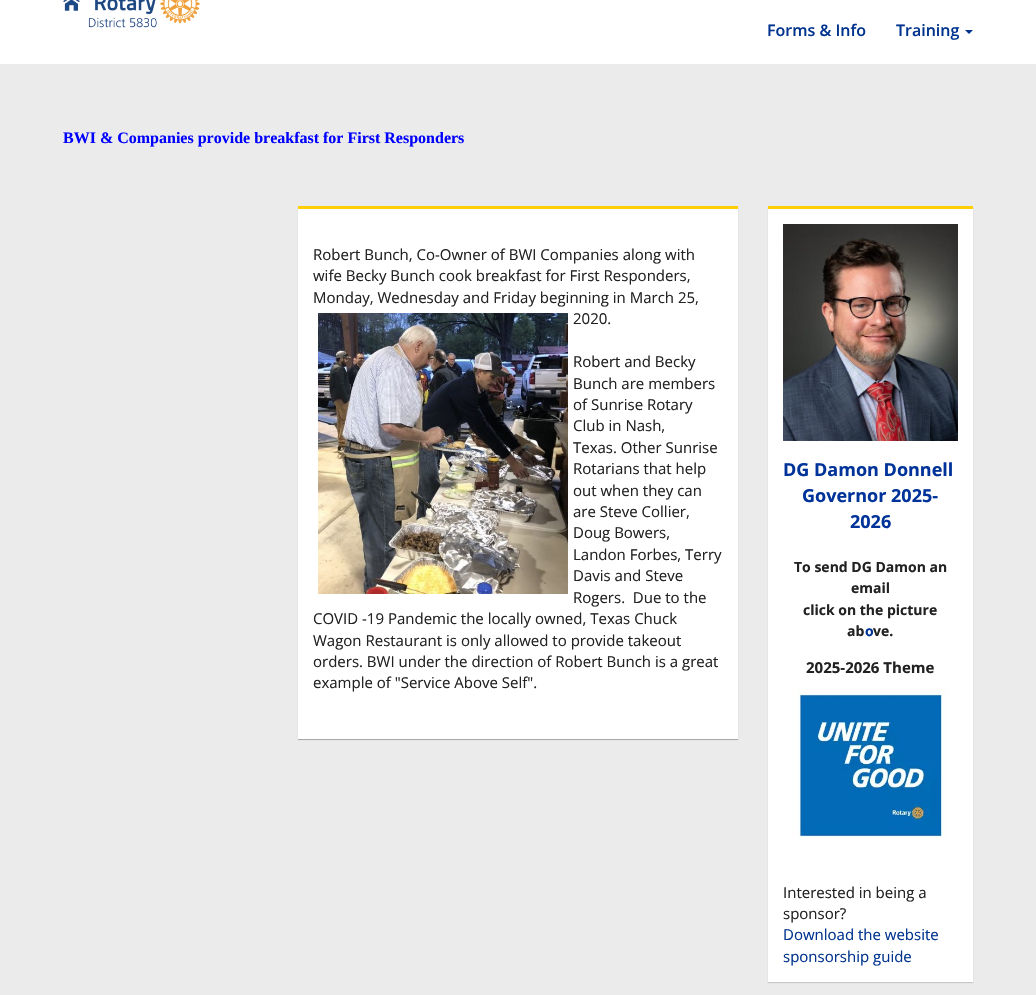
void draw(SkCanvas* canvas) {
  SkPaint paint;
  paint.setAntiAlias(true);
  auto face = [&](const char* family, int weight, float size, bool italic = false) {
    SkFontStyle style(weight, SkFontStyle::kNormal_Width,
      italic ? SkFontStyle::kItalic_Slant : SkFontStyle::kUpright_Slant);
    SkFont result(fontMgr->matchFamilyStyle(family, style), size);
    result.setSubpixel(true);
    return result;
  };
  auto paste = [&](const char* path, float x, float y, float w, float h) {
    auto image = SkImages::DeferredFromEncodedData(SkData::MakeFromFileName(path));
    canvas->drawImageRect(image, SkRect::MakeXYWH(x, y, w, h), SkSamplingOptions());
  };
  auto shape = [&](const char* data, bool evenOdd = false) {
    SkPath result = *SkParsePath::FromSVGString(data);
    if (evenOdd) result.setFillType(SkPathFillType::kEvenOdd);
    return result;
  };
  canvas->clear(0xffebebeb);
  paint.setColor(0xffffffff);
  canvas->drawRect(SkRect::MakeXYWH(0, 0, 1036, 64), paint);
  paste("img/1.png", 63, 0, 137, 28);
  paint.setColor(0xff00338e);
  canvas->drawPath(shape("M965 30H973L969 34Z"), paint);
  paint.setColor(0x26000000);
  paint.setMaskFilter(SkMaskFilter::MakeBlur(kNormal_SkBlurStyle, 0.5f));
  canvas->drawRect(SkRect::MakeXYWH(298, 207, 440, 533), paint);
  paint.setMaskFilter(nullptr);
  paint.setColor(0xffffffff);
  canvas->drawRect(SkRect::MakeXYWH(298, 209, 440, 530), paint);
  canvas->save();
  canvas->clipRect(SkRect::MakeXYWH(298, 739, 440, 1));
  paint.setColor(0x26000000);
  paint.setMaskFilter(SkMaskFilter::MakeBlur(kNormal_SkBlurStyle, 0.5f));
  canvas->drawRect(SkRect::MakeXYWH(298, 207, 440, 533), paint);
  paint.setMaskFilter(nullptr);
  canvas->restore();
  paint.setColor(0xffffcf03);
  canvas->drawRect(SkRect::MakeXYWH(298, 206, 440, 3), paint);
  paste("img/2.png", 318, 313, 250, 281);
  paint.setColor(0x26000000);
  paint.setMaskFilter(SkMaskFilter::MakeBlur(kNormal_SkBlurStyle, 0.5f));
  canvas->drawRect(SkRect::MakeXYWH(768, 207, 205, 776), paint);
  paint.setMaskFilter(nullptr);
  paint.setColor(0xffffffff);
  canvas->drawRect(SkRect::MakeXYWH(768, 209, 205, 773), paint);
  paint.setColor(0xffffcf03);
  canvas->drawRect(SkRect::MakeXYWH(768, 206, 205, 3), paint);
  paste("img/3.png", 783, 224, 175, 217);
  paste("img/4.png", 792, 688, 157, 149);
  auto f0 = face("Open Sans", 600, 16);
  paint.setColor(0xff00338e);
  canvas->drawString("Forms & Info", 767, 36, f0, paint);
  canvas->drawString("Training", 896, 36, f0, paint);
  auto f1 = face("Liberation Serif", 700, 16);
  paint.setColor(0xff0000ff);
  canvas->drawString("BWI & Companies provide breakfast for First Responders", 63, 143, f1, paint);
  auto f2 = face("Open Sans", 400, 15);
  paint.setColor(0xff222222);
  {
    const struct { const char* s; float x, y; } items[] = {
      {"Robert Bunch, Co-Owner of BWI Companies along with", 313, 260},
      {"wife Becky Bunch cook breakfast for First Responders,", 313, 281},
      {"Monday, Wednesday and Friday beginning in March 25,", 313, 303},
      {"2020.", 573, 324},
      {"Robert and Becky", 573, 367},
      {"Bunch are members", 573, 389},
      {"of Sunrise Rotary", 573, 410},
      {"Club in Nash,", 573, 431},
      {"Texas. Other Sunrise", 573, 453},
      {"Rotarians that help", 573, 474},
      {"out when they can", 573, 496},
      {"are Steve Collier,", 573, 517},
      {"Doug Bowers,", 573, 538},
      {"Landon Forbes, Terry", 573, 560},
      {"Davis and Steve", 573, 581},
      {"Rogers.  Due to the", 573, 603},
      {"COVID -19 Pandemic the locally owned, Texas Chuck", 313, 624},
      {"Wagon Restaurant is only allowed to provide takeout", 313, 646},
      {"orders. BWI under the direction of Robert Bunch is a great", 313, 667},
      {"example of \"Service Above Self\".", 313, 688},
    };
    for (auto [s, x, y] : items) {
      canvas->drawString(s, x, y, f2, paint);
    }
  }
  auto f3 = face("Open Sans", 700, 18);
  paint.setColor(0xff003399);
  {
    const struct { const char* s; float x, y; } items[] = {
      {"DG Damon Donnell", 783, 476},
      {"Governor 2025-", 802, 502},
      {"2026", 850, 528},
    };
    for (auto [s, x, y] : items) {
      canvas->drawString(s, x, y, f3, paint);
    }
  }
  auto f4 = face("Open Sans", 700, 14);
  paint.setColor(0xff222222);
  {
    const struct { const char* s; float x, y; } items[] = {
      {"To send DG Damon an", 794, 572},
      {"email", 851, 593},
      {"click on the picture", 803, 615},
      {"ab", 847, 636},
    };
    for (auto [s, x, y] : items) {
      canvas->drawString(s, x, y, f4, paint);
    }
  }
  paint.setColor(0xff003399);
  canvas->drawString("o", 865, 636, f4, paint);
  paint.setColor(0xff222222);
  canvas->drawString("ve.", 873, 636, f4, paint);
  auto f5 = face("Open Sans", 700, 15);
  canvas->drawString("2025-2026 Theme", 806, 673, f5, paint);
  canvas->drawString("Interested in being a", 783, 898, f2, paint);
  canvas->drawString("sponsor?", 783, 919, f2, paint);
  paint.setColor(0xff00338e);
  canvas->drawString("Download the website", 783, 940, f2, paint);
  canvas->drawString("sponsorship guide", 783, 962, f2, paint);
}
